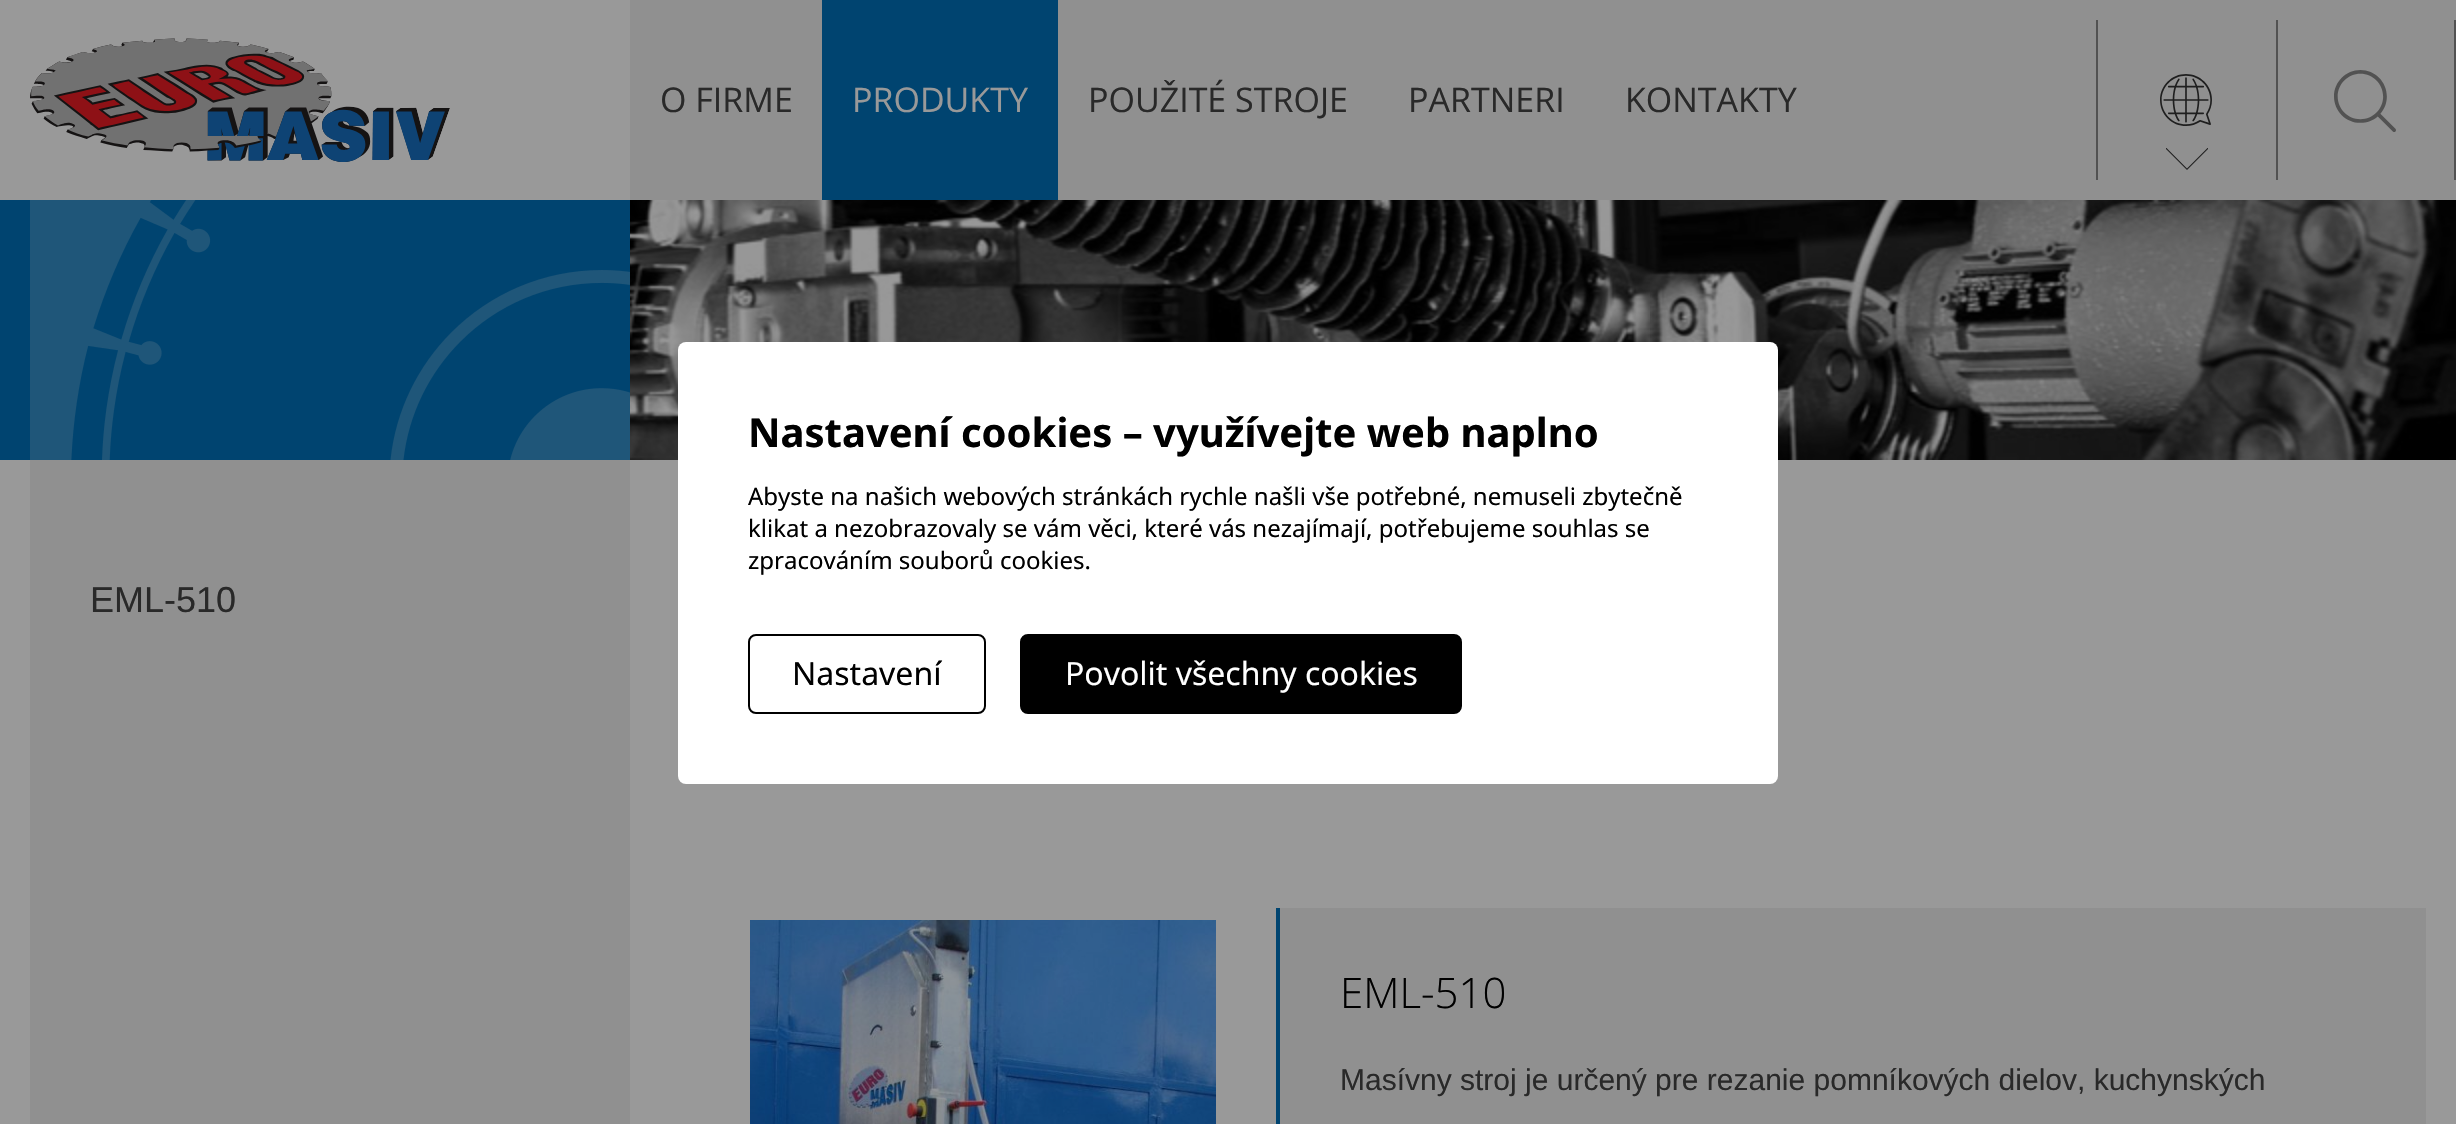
void draw(SkCanvas* canvas) {
  SkPaint paint;
  paint.setAntiAlias(true);
  auto face = [&](const char* family, int weight, float size, bool italic = false) {
    SkFontStyle style(weight, SkFontStyle::kNormal_Width,
      italic ? SkFontStyle::kItalic_Slant : SkFontStyle::kUpright_Slant);
    SkFont result(fontMgr->matchFamilyStyle(family, style), size);
    result.setSubpixel(true);
    return result;
  };
  auto paste = [&](const char* path, float x, float y, float w, float h) {
    auto image = SkImages::DeferredFromEncodedData(SkData::MakeFromFileName(path));
    canvas->drawImageRect(image, SkRect::MakeXYWH(x, y, w, h), SkSamplingOptions());
  };
  canvas->clear(0xff999999);
  paste("img/1.png", 30, 38, 420, 124);
  {
    const struct { float x, y, w, h; SkColor color; } items[] = {
      {630, 0, 1826, 200, 0xff909090},
      {822, 0, 236, 200, 0xff004470},
      {2096, 20, 2, 160, 0xff525252},
    };
    for (auto [x, y, w, h, color] : items) {
      paint.setColor(color);
      canvas->drawRect(SkRect::MakeXYWH(x, y, w, h), paint);
    }
  }
  paste("img/2.png", 2160, 74, 52, 52);
  paste("img/3.png", 2166, 148, 42, 22);
  canvas->drawRect(SkRect::MakeXYWH(2454, 20, 2, 160), paint);
  canvas->drawRect(SkRect::MakeXYWH(2276, 20, 2, 160), paint);
  paste("img/4.png", 2334, 70, 62, 62);
  paint.setColor(0xff004470);
  canvas->drawRect(SkRect::MakeXYWH(0, 200, 630, 260), paint);
  paste("img/5.png", 30, 200, 600, 260);
  paste("img/6.png", 630, 200, 1826, 260);
  paint.setColor(0xff909090);
  canvas->drawRect(SkRect::MakeXYWH(30, 460, 600, 664), paint);
  paste("img/7.png", 750, 920, 466, 204);
  canvas->drawRect(SkRect::MakeXYWH(1280, 908, 1146, 216), paint);
  paint.setColor(0xff004470);
  canvas->drawRect(SkRect::MakeXYWH(1276, 908, 4, 216), paint);
  paint.setColor(0xffffffff);
  canvas->drawRoundRect(SkRect::MakeXYWH(678, 342, 1100, 442), 8, 8, paint);
  paint.setStroke(true);
  paint.setStrokeWidth(2);
  paint.setColor(0xff000000);
  canvas->drawRoundRect(SkRect::MakeXYWH(749, 635, 236, 78), 7, 7, paint);
  paint.setStroke(false);
  canvas->drawRoundRect(SkRect::MakeXYWH(1021, 635, 440, 78), 7, 7, paint);
  paint.setStroke(true);
  canvas->drawRoundRect(SkRect::MakeXYWH(1021, 635, 440, 78), 7, 7, paint);
  auto f0 = face("Open Sans", 400, 34);
  paint.setStroke(false);
  paint.setColor(0xff292929);
  canvas->drawString("O FIRME", 660, 112, f0, paint);
  paint.setColor(0xff999999);
  canvas->drawString("PRODUKTY", 852, 112, f0, paint);
  paint.setColor(0xff292929);
  {
    const struct { const char* s; float x, y; } items[] = {
      {"POUŽITÉ STROJE", 1088, 112},
      {"PARTNERI", 1408, 112},
      {"KONTAKTY", 1625, 112},
    };
    for (auto [s, x, y] : items) {
      canvas->drawString(s, x, y, f0, paint);
    }
  }
  auto f1 = face("Liberation Sans", 400, 36);
  canvas->drawString("EML-510", 90, 612, f1, paint);
  auto f2 = face("Open Sans", 300, 42);
  paint.setColor(0xff000000);
  canvas->drawString("EML-510", 1340, 1008, f2, paint);
  auto f3 = face("Liberation Sans", 400, 30);
  paint.setColor(0xff292929);
  canvas->drawString("Masívny stroj je určený pre rezanie pomníkových dielov, kuchynských", 1340, 1090, f3, paint);
  auto f4 = face("Noto Sans", 700, 40);
  paint.setColor(0xff000000);
  canvas->drawString("Nastavení cookies – využívejte web naplno", 748, 447, f4, paint);
  auto f5 = face("Noto Sans", 400, 24);
  {
    const struct { const char* s; float x, y; } items[] = {
      {"Abyste na našich webových stránkách rychle našli vše potřebné, nemuseli zbytečně", 748, 505},
      {"klikat a nezobrazovaly se vám věci, které vás nezajímají, potřebujeme souhlas se", 748, 537},
      {"zpracováním souborů cookies.", 748, 569},
    };
    for (auto [s, x, y] : items) {
      canvas->drawString(s, x, y, f5, paint);
    }
  }
  auto f6 = face("Noto Sans", 400, 32);
  canvas->drawString("Nastavení", 792, 685, f6, paint);
  paint.setColor(0xffffffff);
  canvas->drawString("Povolit všechny cookies", 1065, 685, f6, paint);
}
